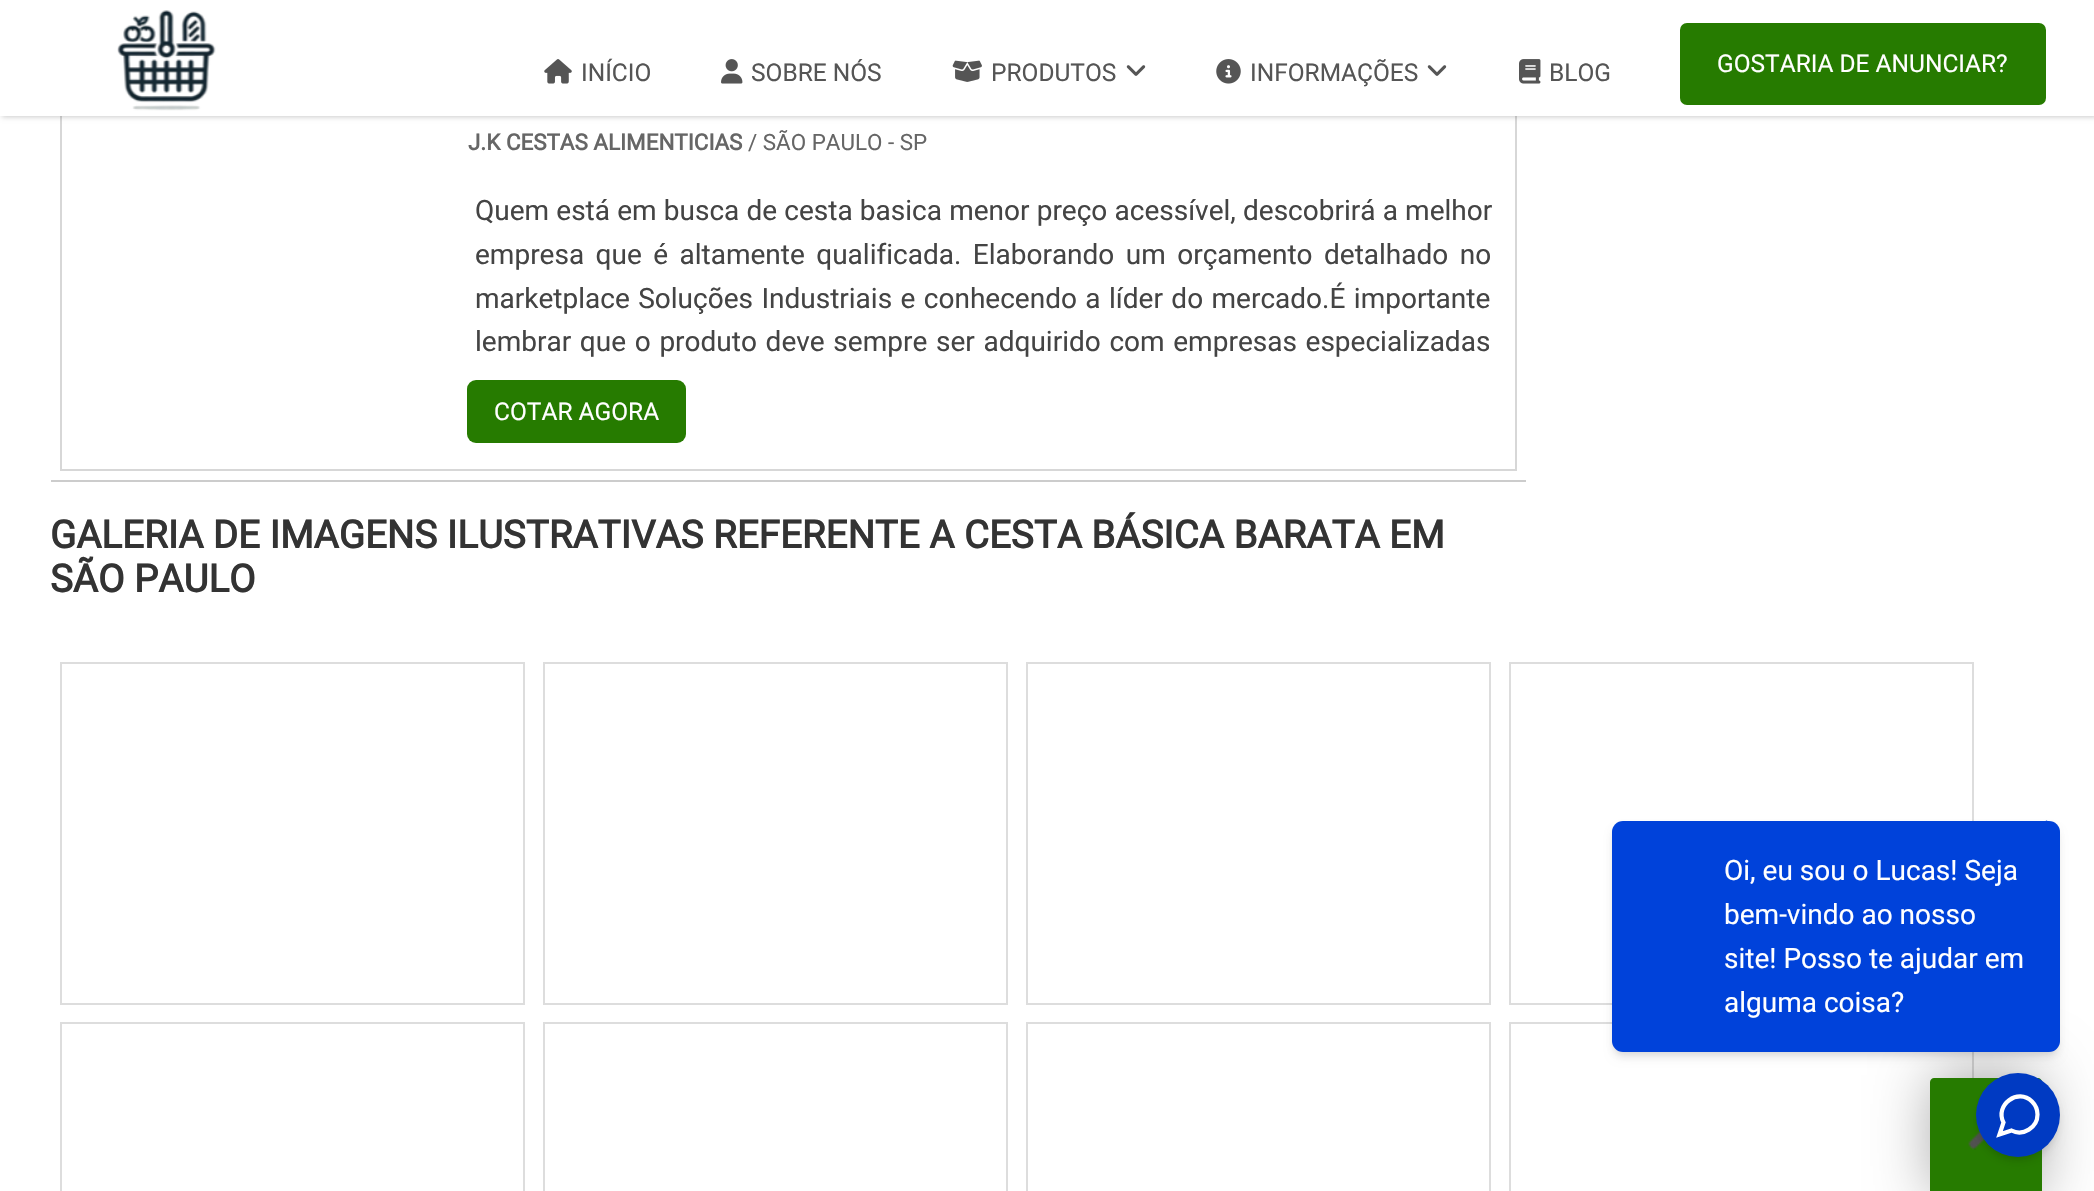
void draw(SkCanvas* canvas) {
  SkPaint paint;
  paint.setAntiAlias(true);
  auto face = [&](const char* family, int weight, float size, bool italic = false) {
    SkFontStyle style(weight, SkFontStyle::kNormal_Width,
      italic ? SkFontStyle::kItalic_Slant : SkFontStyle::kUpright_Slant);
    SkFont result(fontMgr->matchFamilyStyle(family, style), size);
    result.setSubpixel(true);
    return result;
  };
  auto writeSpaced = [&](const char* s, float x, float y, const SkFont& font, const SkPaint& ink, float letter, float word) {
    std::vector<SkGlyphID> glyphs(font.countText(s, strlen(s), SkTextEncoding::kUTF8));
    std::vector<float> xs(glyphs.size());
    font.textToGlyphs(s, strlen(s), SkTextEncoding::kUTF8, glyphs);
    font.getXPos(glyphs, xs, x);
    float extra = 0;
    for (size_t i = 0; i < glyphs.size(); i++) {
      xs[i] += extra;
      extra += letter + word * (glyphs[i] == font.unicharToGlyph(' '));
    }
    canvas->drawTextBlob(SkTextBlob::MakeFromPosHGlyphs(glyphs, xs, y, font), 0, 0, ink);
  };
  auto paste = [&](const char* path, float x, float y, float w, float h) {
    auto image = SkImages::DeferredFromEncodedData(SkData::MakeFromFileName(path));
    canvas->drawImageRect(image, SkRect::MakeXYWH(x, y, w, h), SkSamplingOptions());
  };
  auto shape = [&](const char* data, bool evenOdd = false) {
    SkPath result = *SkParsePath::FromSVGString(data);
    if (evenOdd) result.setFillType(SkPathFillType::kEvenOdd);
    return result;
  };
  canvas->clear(0xffffffff);
  paint.setStroke(true);
  paint.setStrokeWidth(2);
  paint.setColor(0xffd7d7d7);
  canvas->drawRect(SkRect::MakeXYWH(61, 12, 1455, 458), paint);
  paint.setStroke(false);
  paint.setColor(0x33000000);
  paint.setMaskFilter(SkMaskFilter::MakeBlur(kNormal_SkBlurStyle, 2.5f));
  canvas->drawRect(SkRect::MakeXYWH(2, 2, 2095, 115), paint);
  paint.setMaskFilter(nullptr);
  paint.setColor(0xffffffff);
  canvas->drawRect(SkRect::MakeXYWH(0, 0, 2094, 116), paint);
  paste("img/1.png", 117, 10, 99, 101);
  paste("img/2.png", 544, 59, 28, 25);
  paste("img/3.png", 721, 59, 22, 25);
  paste("img/4.png", 952, 60, 30, 22);
  paste("img/5.png", 1126, 65, 20, 11);
  paste("img/6.png", 1216, 59, 25, 25);
  paste("img/5.png", 1427, 65, 20, 11);
  paste("img/7.png", 1519, 59, 22, 25);
  paint.setColor(0xff267b00);
  canvas->drawRoundRect(SkRect::MakeXYWH(1681, 24, 364, 80), 6, 6, paint);
  paint.setStroke(true);
  canvas->drawRoundRect(SkRect::MakeXYWH(1681, 24, 364, 80), 6, 6, paint);
  paint.setStroke(false);
  canvas->drawRoundRect(SkRect::MakeXYWH(467, 380, 219, 63), 9, 9, paint);
  paint.setColor(0xffcccccc);
  canvas->drawRect(SkRect::MakeXYWH(51, 480, 1475, 2), paint);
  paint.setStroke(true);
  paint.setColor(0xffdddddd);
  canvas->drawRect(SkRect::MakeXYWH(61, 663, 463, 341), paint);
  canvas->drawRect(SkRect::MakeXYWH(544, 663, 463, 341), paint);
  canvas->drawRect(SkRect::MakeXYWH(1027, 663, 463, 341), paint);
  canvas->drawRect(SkRect::MakeXYWH(1510, 663, 463, 341), paint);
  canvas->drawRect(SkRect::MakeXYWH(61, 1023, 463, 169), paint);
  canvas->drawRect(SkRect::MakeXYWH(544, 1023, 463, 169), paint);
  canvas->drawRect(SkRect::MakeXYWH(1027, 1023, 463, 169), paint);
  canvas->drawRect(SkRect::MakeXYWH(1510, 1023, 463, 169), paint);
  paint.setStroke(false);
  paint.setColor(0x1a000000);
  paint.setMaskFilter(SkMaskFilter::MakeBlur(kNormal_SkBlurStyle, 3.5f));
  canvas->drawRoundRect(SkRect::MakeXYWH(1615, 828, 441, 224), 7, 7, paint);
  paint.setMaskFilter(nullptr);
  paint.setMaskFilter(SkMaskFilter::MakeBlur(kNormal_SkBlurStyle, 5));
  canvas->drawRoundRect(SkRect::MakeXYWH(1614, 830, 444, 227), 9, 9, paint);
  paint.setMaskFilter(nullptr);
  paint.setColor(0x61000000);
  paint.setMaskFilter(SkMaskFilter::MakeBlur(kNormal_SkBlurStyle, 31.5f));
  canvas->drawRect(SkRect::MakeXYWH(1936, 1075, 101, 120), paint);
  paint.setMaskFilter(nullptr);
  paint.setColor(0xff0042da);
  canvas->drawRoundRect(SkRect::MakeXYWH(1612, 821, 448, 231), 11, 11, paint);
  paint.setStroke(true);
  paint.setStrokeCap(SkPaint::kRound_Cap);
  paint.setStrokeJoin(SkPaint::kRound_Join);
  canvas->drawPath(shape("M2046.5 821.5L2059 834"), paint);
  paint.setStroke(false);
  paint.setColor(0xff267b00);
  canvas->drawPath(shape("M1934 1078H2038C2040 1078 2042 1080 2042 1082V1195H1930V1082C1930 1080 1932 1078 1934 1078Z"), paint);
  paste("img/8.png", 1968, 1130, 17, 20);
  paint.setColor(0x1a000000);
  paint.setMaskFilter(SkMaskFilter::MakeBlur(kNormal_SkBlurStyle, 3.5f));
  canvas->drawRoundRect(SkRect::MakeXYWH(1979, 1080, 77, 77), 38.5f, 38.5f, paint);
  paint.setMaskFilter(nullptr);
  paint.setMaskFilter(SkMaskFilter::MakeBlur(kNormal_SkBlurStyle, 5));
  canvas->drawRoundRect(SkRect::MakeXYWH(1978, 1082, 80, 80), 40, 40, paint);
  paint.setMaskFilter(nullptr);
  paint.setColor(0xff003ac2);
  canvas->drawCircle(2018, 1115, 42, paint);
  paint.setStroke(true);
  paint.setStrokeWidth(4.2f);
  paint.setStrokeCap(SkPaint::kButt_Cap);
  paint.setStrokeJoin(SkPaint::kMiter_Join);
  paint.setColor(0xffffffff);
  canvas->drawPath(shape("M2037.5 1114.5C2037.5 1127.5 2023 1136.5 2011.5 1130.5L1999.5 1134.5L2003.5 1122.5C1994.5 1105 2018 1087.5 2032 1101.5C2035.5 1105 2037.5 1109.5 2037.5 1114.5Z"), paint);
  auto f0 = face("Roboto", 400, 24.5f);
  paint.setStroke(false);
  paint.setColor(0xff555555);
  {
    const struct { const char* s; float x, y; } items[] = {
      {"INÍCIO", 581, 81},
      {"SOBRE NÓS", 751, 81},
      {"PRODUTOS", 991, 81},
      {"INFORMAÇÕES", 1250, 81},
      {"BLOG", 1549, 81},
    };
    for (auto [s, x, y] : items) {
      canvas->drawString(s, x, y, f0, paint);
    }
  }
  paint.setColor(0xffffffff);
  canvas->drawString("GOSTARIA DE ANUNCIAR?", 1717, 72, f0, paint);
  auto f1 = face("Roboto", 700, 22.4f);
  paint.setColor(0xff666666);
  canvas->drawString("J.K CESTAS ALIMENTICIAS", 468, 150, f1, paint);
  auto f2 = face("Roboto", 400, 22.4f);
  canvas->drawString("/ SÃO PAULO - SP", 748, 150, f2, paint);
  auto f3 = face("Roboto", 400, 28);
  paint.setColor(0xff444444);
  writeSpaced("Quem está em busca de cesta basica menor preço acessível, descobrirá a melhor", 475, 220, f3, paint, 0, 0.25f);
  writeSpaced("empresa que é altamente qualificada. Elaborando um orçamento detalhado no", 475, 264, f3, paint, 0, 4.5f);
  writeSpaced("marketplace Soluções Industriais e conhecendo a líder do mercado.É importante", 475, 308, f3, paint, 0, 1.5f);
  writeSpaced("lembrar que o produto deve sempre ser adquirido com empresas especializadas", 475, 351, f3, paint, 0, 1.75f);
  paint.setColor(0xffffffff);
  canvas->drawString("COTAR AGORA", 494, 420, f0, paint);
  auto f4 = face("Roboto", 700, 38.5f);
  paint.setColor(0xff333333);
  canvas->drawString("GALERIA DE IMAGENS ILUSTRATIVAS REFERENTE A CESTA BÁSICA BARATA EM", 50, 548, f4, paint);
  canvas->drawString("SÃO PAULO", 50, 592, f4, paint);
  paint.setColor(0xffffffff);
  {
    const struct { const char* s; float x, y; } items[] = {
      {"Oi, eu sou o Lucas! Seja", 1724, 880},
      {"bem-vindo ao nosso", 1724, 924},
      {"site! Posso te ajudar em", 1724, 968},
      {"alguma coisa?", 1724, 1012},
    };
    for (auto [s, x, y] : items) {
      canvas->drawString(s, x, y, f3, paint);
    }
  }
}
